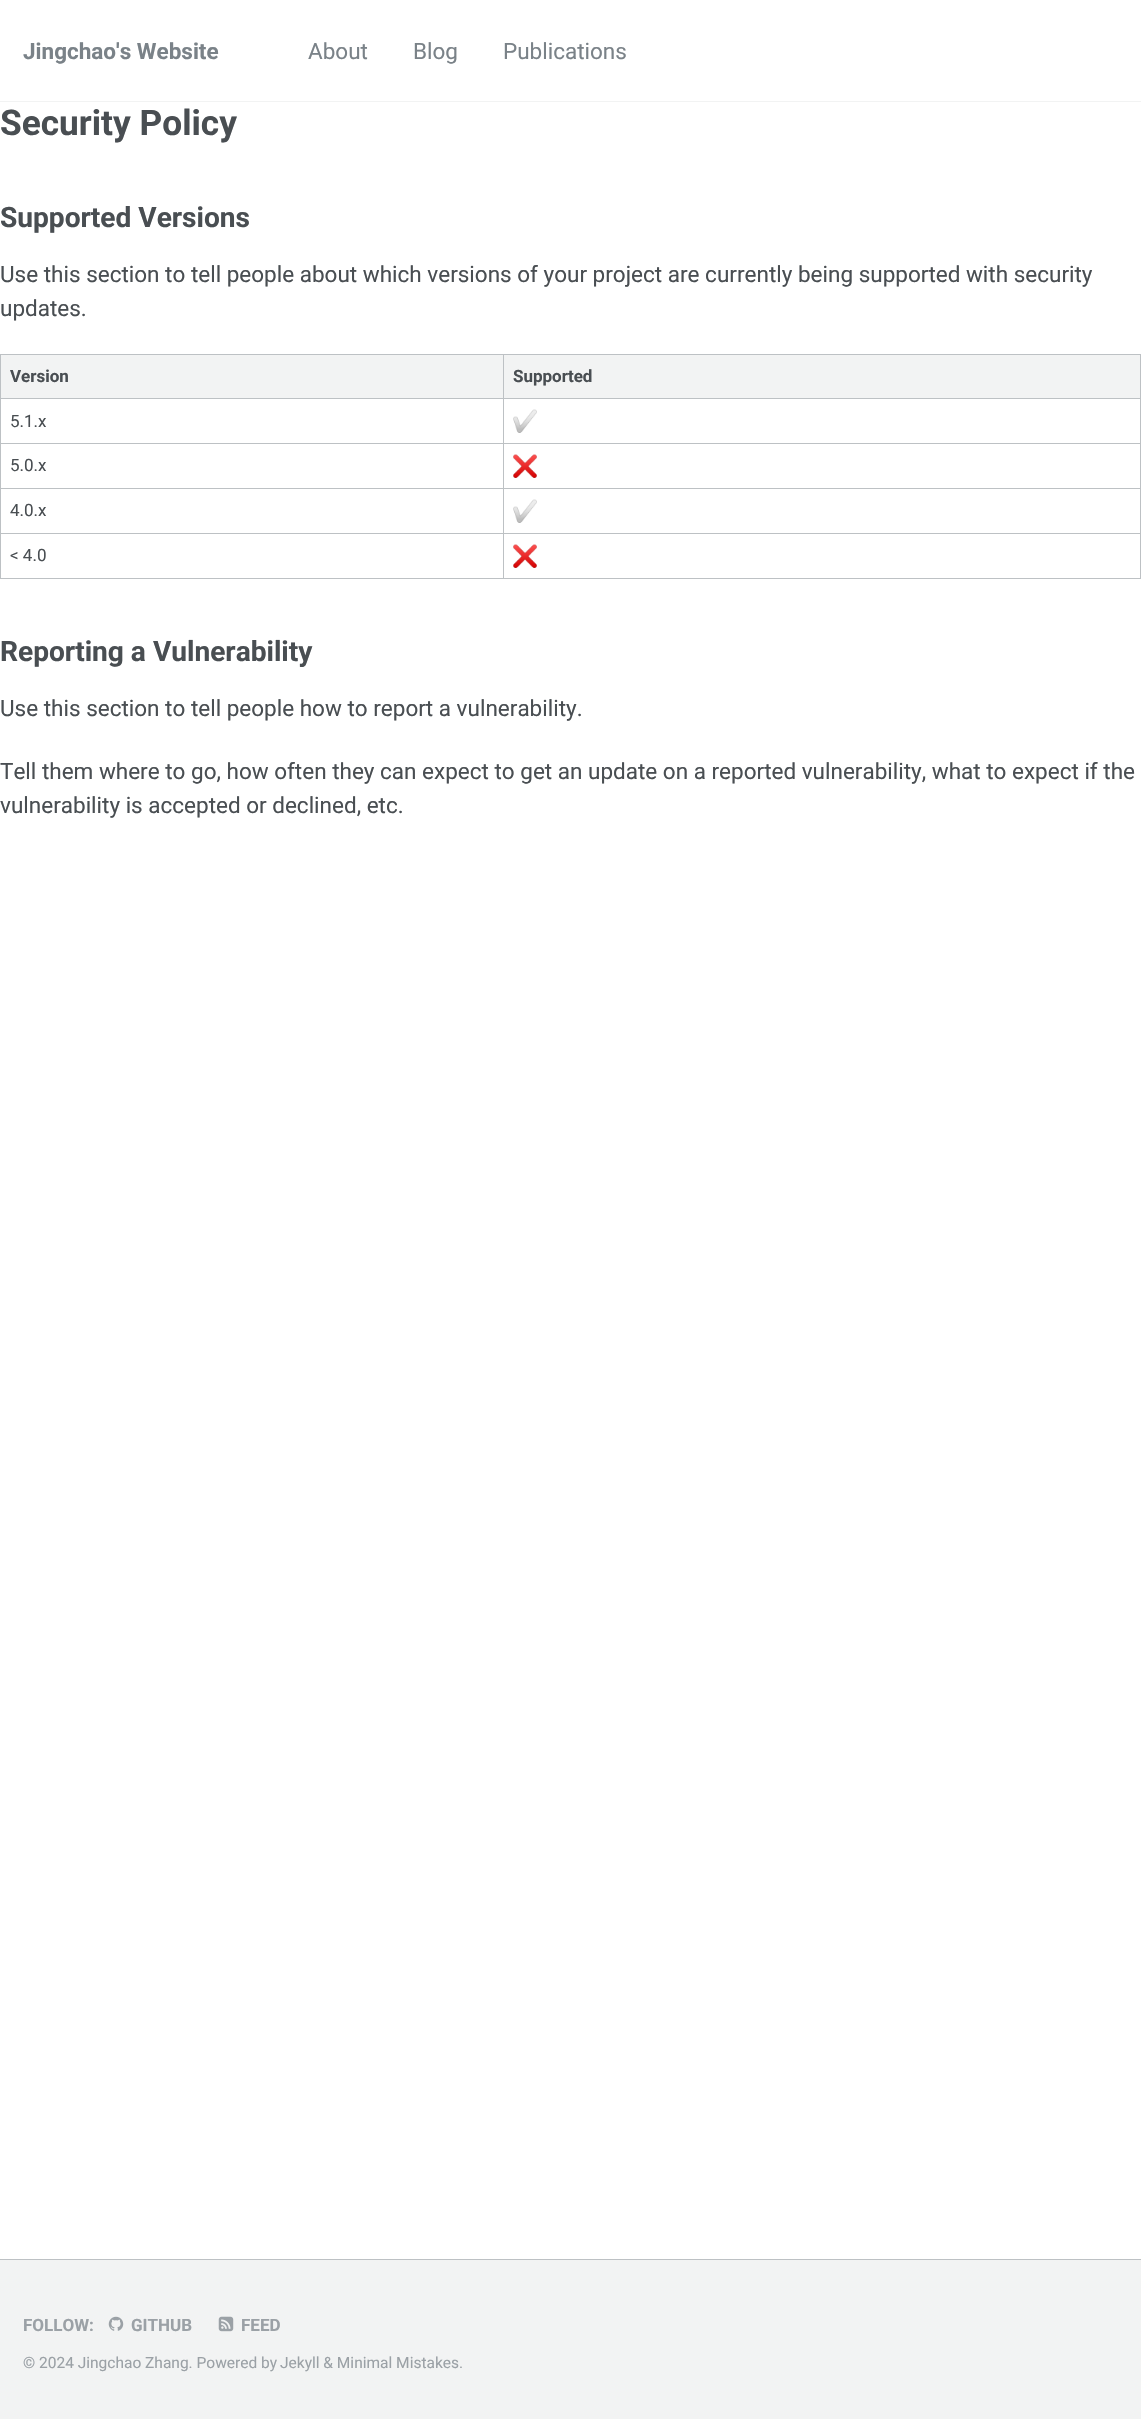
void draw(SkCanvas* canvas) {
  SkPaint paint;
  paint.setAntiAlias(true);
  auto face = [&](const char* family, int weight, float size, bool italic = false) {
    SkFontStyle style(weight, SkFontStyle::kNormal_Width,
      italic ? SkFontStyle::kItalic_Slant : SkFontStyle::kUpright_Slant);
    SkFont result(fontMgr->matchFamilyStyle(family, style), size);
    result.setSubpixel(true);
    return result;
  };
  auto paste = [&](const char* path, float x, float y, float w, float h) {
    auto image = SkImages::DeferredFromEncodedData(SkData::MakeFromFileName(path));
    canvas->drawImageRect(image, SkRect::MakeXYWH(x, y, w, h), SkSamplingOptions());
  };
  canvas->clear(0xffffffff);
  {
    const struct { float x, y, w, h; SkColor color; } items[] = {
      {0, 101, 1141, 1, 0xfff2f3f3},
      {0, 354, 1141, 1, 0xffbdc1c4},
      {1140, 354, 1, 225, 0xffbdc1c4},
      {0, 578, 1141, 1, 0xffbdc1c4},
      {0, 354, 1, 225, 0xffbdc1c4},
      {1, 355, 1139, 43, 0xfff2f3f3},
      {0, 398, 1141, 1, 0xffbdc1c4},
      {503, 533, 1, 46, 0xffbdc1c4},
      {503, 533, 638, 1, 0xffbdc1c4},
      {503, 488, 1, 46, 0xffbdc1c4},
      {503, 488, 638, 1, 0xffbdc1c4},
      {503, 443, 1, 46, 0xffbdc1c4},
      {503, 443, 638, 1, 0xffbdc1c4},
      {503, 354, 1, 90, 0xffbdc1c4},
      {0, 443, 504, 1, 0xffbdc1c4},
    };
    for (auto [x, y, w, h, color] : items) {
      paint.setColor(color);
      canvas->drawRect(SkRect::MakeXYWH(x, y, w, h), paint);
    }
  }
  paste("img/1.png", 513, 409, 24, 24);
  canvas->drawRect(SkRect::MakeXYWH(0, 488, 504, 1), paint);
  paste("img/2.png", 513, 454, 24, 24);
  canvas->drawRect(SkRect::MakeXYWH(0, 533, 504, 1), paint);
  paste("img/1.png", 513, 499, 24, 24);
  paste("img/2.png", 513, 544, 24, 24);
  paint.setColor(0xfff2f3f3);
  canvas->drawRect(SkRect::MakeXYWH(0, 2260, 1141, 159), paint);
  paint.setColor(0xffbdc1c4);
  canvas->drawRect(SkRect::MakeXYWH(0, 2259, 1141, 1), paint);
  paste("img/3.png", 108, 2316, 16, 15);
  paste("img/4.png", 218, 2316, 16, 16);
  auto f0 = face("Roboto", 700, 22.5f);
  paint.setColor(0xff7a8288);
  canvas->drawString("Jingchao's Website", 23, 59, f0, paint);
  auto f1 = face("Roboto", 400, 22.5f);
  {
    const struct { const char* s; float x, y; } items[] = {
      {"About", 308, 59},
      {"Blog", 413, 59},
      {"Publications", 503, 59},
    };
    for (auto [s, x, y] : items) {
      canvas->drawString(s, x, y, f1, paint);
    }
  }
  auto f2 = face("Roboto", 700, 35.25f);
  paint.setColor(0xff494e52);
  canvas->drawString("Security Policy", 0, 135, f2, paint);
  auto f3 = face("Roboto", 700, 28.1f);
  canvas->drawString("Supported Versions", 0, 227, f3, paint);
  canvas->drawString("Use this section to tell people about which versions of your project are currently being supported with security", 0, 282, f1, paint);
  canvas->drawString("updates.", 0, 316, f1, paint);
  auto f4 = face("Roboto", 700, 17);
  canvas->drawString("Version", 10, 382, f4, paint);
  canvas->drawString("Supported", 513, 382, f4, paint);
  auto f5 = face("Roboto", 400, 17);
  {
    const struct { const char* s; float x, y; } items[] = {
      {"5.1.x", 10, 427},
      {"5.0.x", 10, 471},
      {"4.0.x", 10, 516},
      {"< 4.0", 10, 561},
    };
    for (auto [s, x, y] : items) {
      canvas->drawString(s, x, y, f5, paint);
    }
  }
  canvas->drawString("Reporting a Vulnerability", 0, 661, f3, paint);
  {
    const struct { const char* s; float x, y; } items[] = {
      {"Use this section to tell people how to report a vulnerability.", 0, 716},
      {"Tell them where to go, how often they can expect to get an update on a reported vulnerability, what to expect if the", 0, 779},
      {"vulnerability is accepted or declined, etc.", 0, 813},
    };
    for (auto [s, x, y] : items) {
      canvas->drawString(s, x, y, f1, paint);
    }
  }
  paint.setColor(0xff9ba1a6);
  {
    const struct { const char* s; float x, y; } items[] = {
      {"FOLLOW:", 23, 2331},
      {"GITHUB", 131, 2331},
      {"FEED", 241, 2331},
    };
    for (auto [s, x, y] : items) {
      canvas->drawString(s, x, y, f4, paint);
    }
  }
  auto f6 = face("Roboto", 400, 15.5f);
  canvas->drawString("© 2024 Jingchao Zhang. Powered by", 23, 2368, f6, paint);
  canvas->drawString("Jekyll & Minimal Mistakes.", 280, 2368, f6, paint);
}
